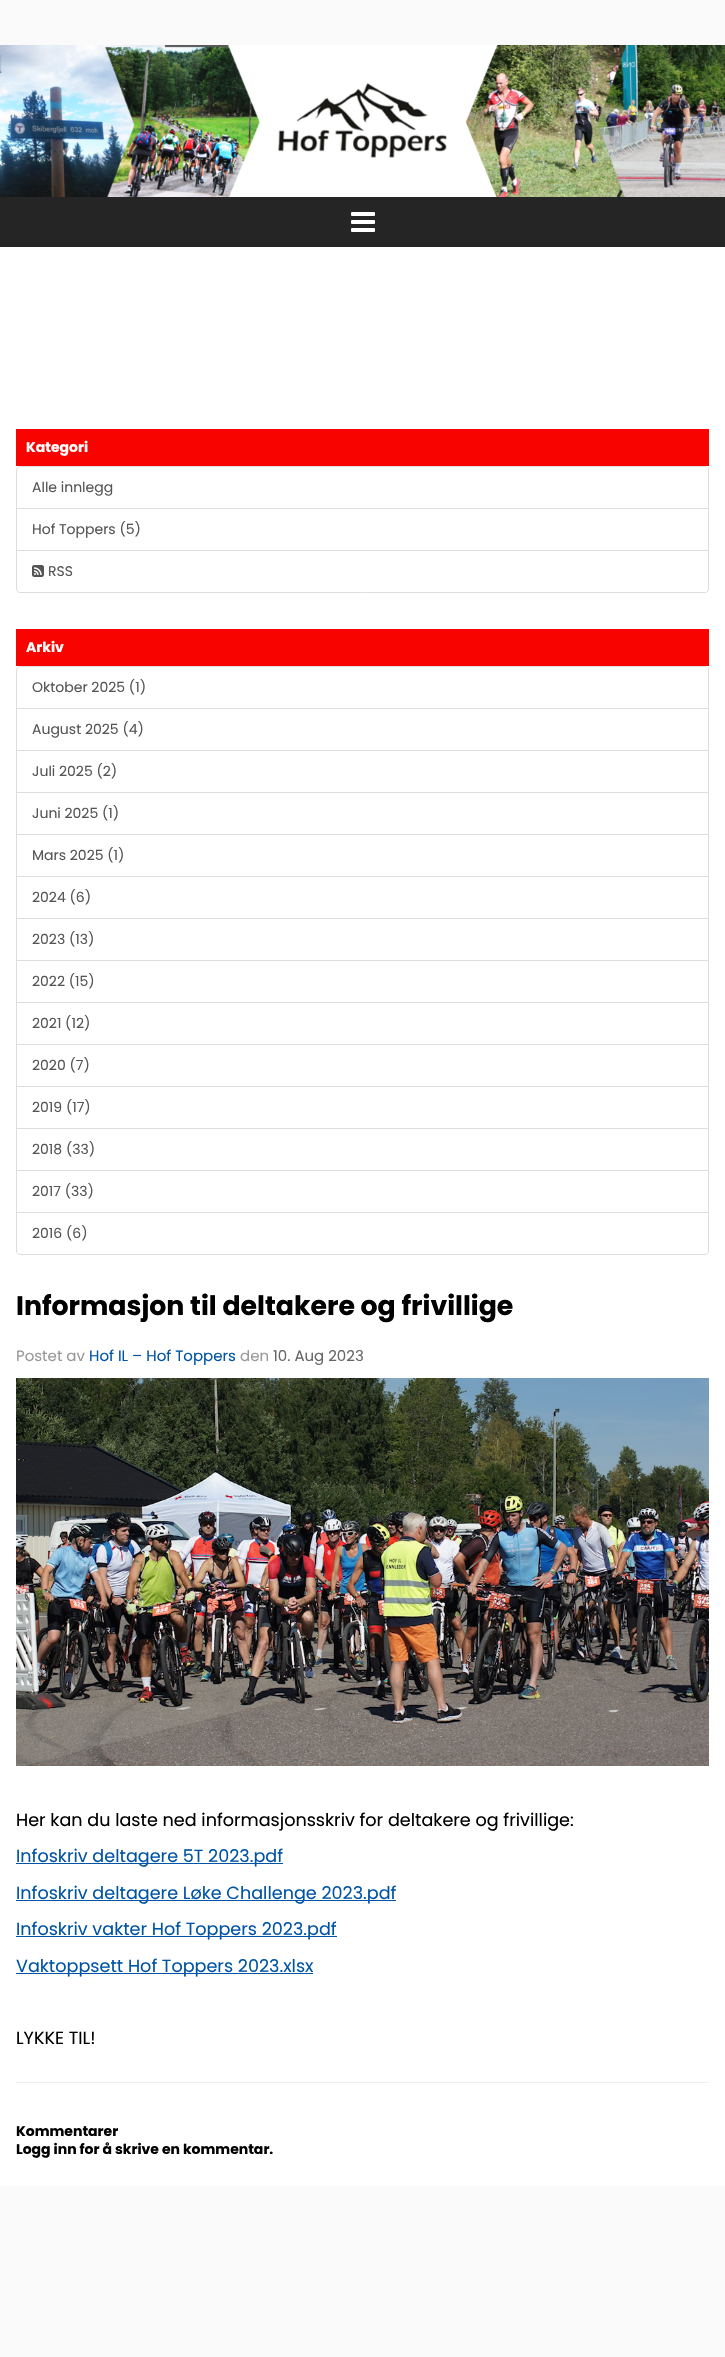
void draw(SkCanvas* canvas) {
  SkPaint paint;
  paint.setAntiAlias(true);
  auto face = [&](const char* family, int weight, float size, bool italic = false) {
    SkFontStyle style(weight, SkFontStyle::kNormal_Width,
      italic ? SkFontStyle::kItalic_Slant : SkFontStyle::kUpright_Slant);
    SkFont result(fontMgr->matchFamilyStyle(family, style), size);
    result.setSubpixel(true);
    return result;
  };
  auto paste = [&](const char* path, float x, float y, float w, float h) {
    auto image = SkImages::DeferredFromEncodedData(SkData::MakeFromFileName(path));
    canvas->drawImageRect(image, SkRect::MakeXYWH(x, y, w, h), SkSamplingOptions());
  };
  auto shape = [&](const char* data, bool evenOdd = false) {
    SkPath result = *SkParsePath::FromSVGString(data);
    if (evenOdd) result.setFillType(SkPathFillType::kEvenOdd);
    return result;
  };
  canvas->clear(0xfffafafa);
  paste("img/1.png", 0, 45, 725, 152);
  paint.setColor(0xff252525);
  canvas->drawRect(SkRect::MakeXYWH(0, 197, 725, 50), paint);
  paste("img/2.png", 351, 212, 24, 20);
  paint.setColor(0xffffffff);
  canvas->drawRect(SkRect::MakeXYWH(0, 247, 725, 1939), paint);
  paint.setColor(0xfff80300);
  canvas->drawRect(SkRect::MakeXYWH(16, 429, 693, 37), paint);
  paint.setStroke(true);
  paint.setStrokeWidth(1);
  paint.setColor(0xffdddddd);
  canvas->drawPath(shape("M20 466.5H705C707 466.5 708.5 468 708.5 470V508.5H16.5V470C16.5 468 18 466.5 20 466.5Z"), paint);
  canvas->drawRect(SkRect::MakeXYWH(16.5f, 508.5f, 692, 42), paint);
  paint.setStroke(false);
  paint.setColor(0xffffffff);
  canvas->drawPath(shape("M16.5 550.5H708.5V589C708.5 591 707 592.5 705 592.5H20C18 592.5 16.5 591 16.5 589Z"), paint);
  paint.setStroke(true);
  paint.setColor(0xffdddddd);
  canvas->drawPath(shape("M16.5 550.5H708.5V589C708.5 591 707 592.5 705 592.5H20C18 592.5 16.5 591 16.5 589Z"), paint);
  paste("img/3.png", 32, 565, 12, 12);
  paint.setStroke(false);
  paint.setColor(0xfff80300);
  canvas->drawRect(SkRect::MakeXYWH(16, 629, 693, 37), paint);
  paint.setStroke(true);
  paint.setColor(0xffdddddd);
  canvas->drawPath(shape("M20 666.5H705C707 666.5 708.5 668 708.5 670V708.5H16.5V670C16.5 668 18 666.5 20 666.5Z"), paint);
  canvas->drawRect(SkRect::MakeXYWH(16.5f, 708.5f, 692, 42), paint);
  canvas->drawRect(SkRect::MakeXYWH(16.5f, 750.5f, 692, 42), paint);
  canvas->drawRect(SkRect::MakeXYWH(16.5f, 792.5f, 692, 42), paint);
  canvas->drawRect(SkRect::MakeXYWH(16.5f, 834.5f, 692, 42), paint);
  canvas->drawRect(SkRect::MakeXYWH(16.5f, 876.5f, 692, 42), paint);
  canvas->drawRect(SkRect::MakeXYWH(16.5f, 918.5f, 692, 42), paint);
  canvas->drawRect(SkRect::MakeXYWH(16.5f, 960.5f, 692, 42), paint);
  canvas->drawRect(SkRect::MakeXYWH(16.5f, 1002.5f, 692, 42), paint);
  canvas->drawRect(SkRect::MakeXYWH(16.5f, 1044.5f, 692, 42), paint);
  canvas->drawRect(SkRect::MakeXYWH(16.5f, 1086.5f, 692, 42), paint);
  canvas->drawRect(SkRect::MakeXYWH(16.5f, 1128.5f, 692, 42), paint);
  canvas->drawRect(SkRect::MakeXYWH(16.5f, 1170.5f, 692, 42), paint);
  paint.setStroke(false);
  paint.setColor(0xffffffff);
  canvas->drawPath(shape("M16.5 1212.5H708.5V1251C708.5 1253 707 1254.5 705 1254.5H20C18 1254.5 16.5 1253 16.5 1251Z"), paint);
  paint.setStroke(true);
  paint.setColor(0xffdddddd);
  canvas->drawPath(shape("M16.5 1212.5H708.5V1251C708.5 1253 707 1254.5 705 1254.5H20C18 1254.5 16.5 1253 16.5 1251Z"), paint);
  paste("img/4.png", 16, 1378, 693, 388);
  paint.setStroke(false);
  {
    const struct { float x, y, w, h; SkColor color; } items[] = {
      {16, 1863, 267, 1, 0xff0054a6},
      {16, 1900, 380, 1, 0xff0054a6},
      {16, 1936, 321, 1, 0xff0054a6},
      {16, 1973, 297, 1, 0xff0054a6},
      {16, 2082, 693, 1, 0xffeeeeee},
    };
    for (auto [x, y, w, h, color] : items) {
      paint.setColor(color);
      canvas->drawRect(SkRect::MakeXYWH(x, y, w, h), paint);
    }
  }
  auto f0 = face("Poppins", 700, 14);
  paint.setColor(0xffffffff);
  canvas->drawString("Kategori", 26, 452, f0, paint);
  auto f1 = face("Poppins", 400, 14);
  paint.setColor(0xff555555);
  {
    const struct { const char* s; float x, y; } items[] = {
      {"Alle innlegg", 32, 492},
      {"Hof Toppers (5)", 32, 534},
      {"RSS", 48, 576},
    };
    for (auto [s, x, y] : items) {
      canvas->drawString(s, x, y, f1, paint);
    }
  }
  paint.setColor(0xffffffff);
  canvas->drawString("Arkiv", 26, 652, f0, paint);
  paint.setColor(0xff555555);
  {
    const struct { const char* s; float x, y; } items[] = {
      {"Oktober 2025 (1)", 32, 692},
      {"August 2025 (4)", 32, 734},
      {"Juli 2025 (2)", 32, 776},
      {"Juni 2025 (1)", 32, 818},
      {"Mars 2025 (1)", 32, 860},
      {"2024 (6)", 32, 902},
      {"2023 (13)", 32, 944},
      {"2022 (15)", 32, 986},
      {"2021 (12)", 32, 1028},
      {"2020 (7)", 32, 1070},
      {"2019 (17)", 32, 1112},
      {"2018 (33)", 32, 1154},
      {"2017 (33)", 32, 1196},
      {"2016 (6)", 32, 1238},
    };
    for (auto [s, x, y] : items) {
      canvas->drawString(s, x, y, f1, paint);
    }
  }
  auto f2 = face("Poppins", 700, 26.75f);
  paint.setColor(0xff000000);
  canvas->drawString("Informasjon til deltakere og frivillige", 16, 1315, f2, paint);
  auto f3 = face("Poppins", 400, 15);
  paint.setColor(0xff999999);
  canvas->drawString("Postet av", 16, 1361, f3, paint);
  paint.setColor(0xff0054a6);
  canvas->drawString("Hof IL – Hof Toppers", 89, 1361, f3, paint);
  paint.setColor(0xff999999);
  canvas->drawString("den", 240, 1361, f3, paint);
  paint.setColor(0xff666666);
  canvas->drawString("10. Aug 2023", 273, 1361, f3, paint);
  auto f4 = face("Poppins", 400, 17.6f);
  paint.setColor(0xff000000);
  canvas->drawString("Her kan du laste ned informasjonsskriv for deltakere og frivillige:", 16, 1826, f4, paint);
  paint.setColor(0xff0054a6);
  {
    const struct { const char* s; float x, y; } items[] = {
      {"Infoskriv deltagere 5T 2023.pdf", 16, 1862},
      {"Infoskriv deltagere Løke Challenge 2023.pdf", 16, 1899},
      {"Infoskriv vakter Hof Toppers 2023.pdf", 16, 1935},
      {"Vaktoppsett Hof Toppers 2023.xlsx", 16, 1972},
    };
    for (auto [s, x, y] : items) {
      canvas->drawString(s, x, y, f4, paint);
    }
  }
  paint.setColor(0xff000000);
  canvas->drawString("LYKKE TIL!", 16, 2044, f4, paint);
  canvas->drawString("Kommentarer", 16, 2136, f0, paint);
  canvas->drawString("Logg inn for å skrive en kommentar.", 16, 2154, f0, paint);
}
